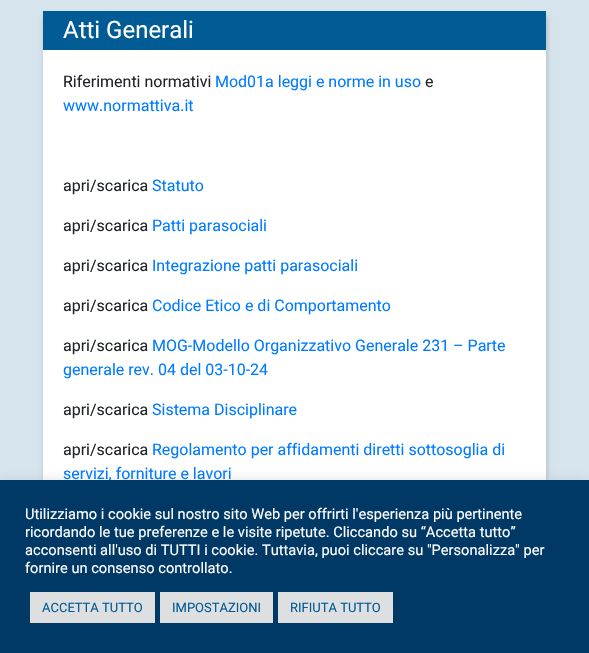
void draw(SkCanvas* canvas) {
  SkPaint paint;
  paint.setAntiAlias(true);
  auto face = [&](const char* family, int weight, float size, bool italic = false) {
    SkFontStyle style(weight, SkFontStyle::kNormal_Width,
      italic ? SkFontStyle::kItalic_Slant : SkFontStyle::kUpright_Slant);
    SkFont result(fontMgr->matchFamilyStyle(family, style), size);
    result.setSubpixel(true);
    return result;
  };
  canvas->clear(0xffd6e4ee);
  paint.setColor(0x2e000000);
  paint.setMaskFilter(SkMaskFilter::MakeBlur(kNormal_SkBlurStyle, 2.5f));
  canvas->drawRect(SkRect::MakeXYWH(44, 16, 503, 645), paint);
  paint.setMaskFilter(nullptr);
  paint.setColor(0xffffffff);
  canvas->drawRect(SkRect::MakeXYWH(43, 50, 503, 430), paint);
  paint.setColor(0xff015b94);
  canvas->drawRect(SkRect::MakeXYWH(43, 11, 503, 39), paint);
  paint.setColor(0x4dacabab);
  paint.setMaskFilter(SkMaskFilter::MakeBlur(kNormal_SkBlurStyle, 5));
  canvas->drawRect(SkRect::MakeXYWH(0, 479, 589, 173), paint);
  paint.setMaskFilter(nullptr);
  auto f0 = face("Roboto", 400, 24);
  paint.setColor(0xffffffff);
  canvas->drawString("Atti Generali", 63, 38, f0, paint);
  auto f1 = face("Roboto", 400, 16);
  paint.setColor(0xff212529);
  canvas->drawString("Riferimenti normativi", 63, 87, f1, paint);
  paint.setColor(0xff007bff);
  canvas->drawString("Mod01a leggi e norme in uso", 215, 87, f1, paint);
  paint.setColor(0xff212529);
  canvas->drawString("e", 425, 87, f1, paint);
  paint.setColor(0xff007bff);
  canvas->drawString("www.normattiva.it", 63, 111, f1, paint);
  paint.setColor(0xff212529);
  canvas->drawString("apri/scarica", 63, 191, f1, paint);
  paint.setColor(0xff007bff);
  canvas->drawString("Statuto", 152, 191, f1, paint);
  paint.setColor(0xff212529);
  canvas->drawString("apri/scarica", 63, 231, f1, paint);
  paint.setColor(0xff007bff);
  canvas->drawString("Patti parasociali", 152, 231, f1, paint);
  paint.setColor(0xff212529);
  canvas->drawString("apri/scarica", 63, 271, f1, paint);
  paint.setColor(0xff007bff);
  canvas->drawString("Integrazione patti parasociali", 152, 271, f1, paint);
  paint.setColor(0xff212529);
  canvas->drawString("apri/scarica", 63, 311, f1, paint);
  paint.setColor(0xff007bff);
  canvas->drawString("Codice Etico e di Comportamento", 152, 311, f1, paint);
  paint.setColor(0xff212529);
  canvas->drawString("apri/scarica", 63, 351, f1, paint);
  paint.setColor(0xff007bff);
  canvas->drawString("MOG-Modello Organizzativo Generale 231 – Parte", 152, 351, f1, paint);
  canvas->drawString("generale rev. 04 del 03-10-24", 63, 375, f1, paint);
  paint.setColor(0xff212529);
  canvas->drawString("apri/scarica", 63, 415, f1, paint);
  paint.setColor(0xff007bff);
  canvas->drawString("Sistema Disciplinare", 152, 415, f1, paint);
  paint.setColor(0xff212529);
  canvas->drawString("apri/scarica", 63, 455, f1, paint);
  paint.setColor(0xff007bff);
  canvas->drawString("Regolamento per affidamenti diretti sottosoglia di", 152, 455, f1, paint);
  canvas->drawString("servizi, forniture e lavori", 63, 479, f1, paint);
  paint.setColor(0xff003866);
  canvas->drawRect(SkRect::MakeXYWH(0, 480, 589, 173), paint);
  auto f2 = face("Roboto", 400, 14.65f);
  paint.setColor(0xffffffff);
  {
    const struct { const char* s; float x, y; } items[] = {
      {"Utilizziamo i cookie sul nostro sito Web per offrirti l'esperienza più pertinente", 25, 519},
      {"ricordando le tue preferenze e le visite ripetute. Cliccando su “Accetta tutto”", 25, 537},
      {"acconsenti all'uso di TUTTI i cookie. Tuttavia, puoi cliccare su \"Personalizza\" per", 25, 555},
      {"fornire un consenso controllato.", 25, 573},
    };
    for (auto [s, x, y] : items) {
      canvas->drawString(s, x, y, f2, paint);
    }
  }
  paint.setColor(0xffdedfe0);
  canvas->drawRect(SkRect::MakeXYWH(30, 592, 125, 31), paint);
  auto f3 = face("Roboto", 400, 13);
  paint.setColor(0xff015b94);
  canvas->drawString("ACCETTA TUTTO", 42, 612, f3, paint);
  paint.setColor(0xffdedfe0);
  canvas->drawRect(SkRect::MakeXYWH(160, 592, 113, 31), paint);
  paint.setColor(0xff015b94);
  canvas->drawString("IMPOSTAZIONI", 172, 612, f3, paint);
  paint.setColor(0xffdedfe0);
  canvas->drawRect(SkRect::MakeXYWH(278, 592, 115, 31), paint);
  paint.setColor(0xff015b94);
  canvas->drawString("RIFIUTA TUTTO", 290, 612, f3, paint);
}
